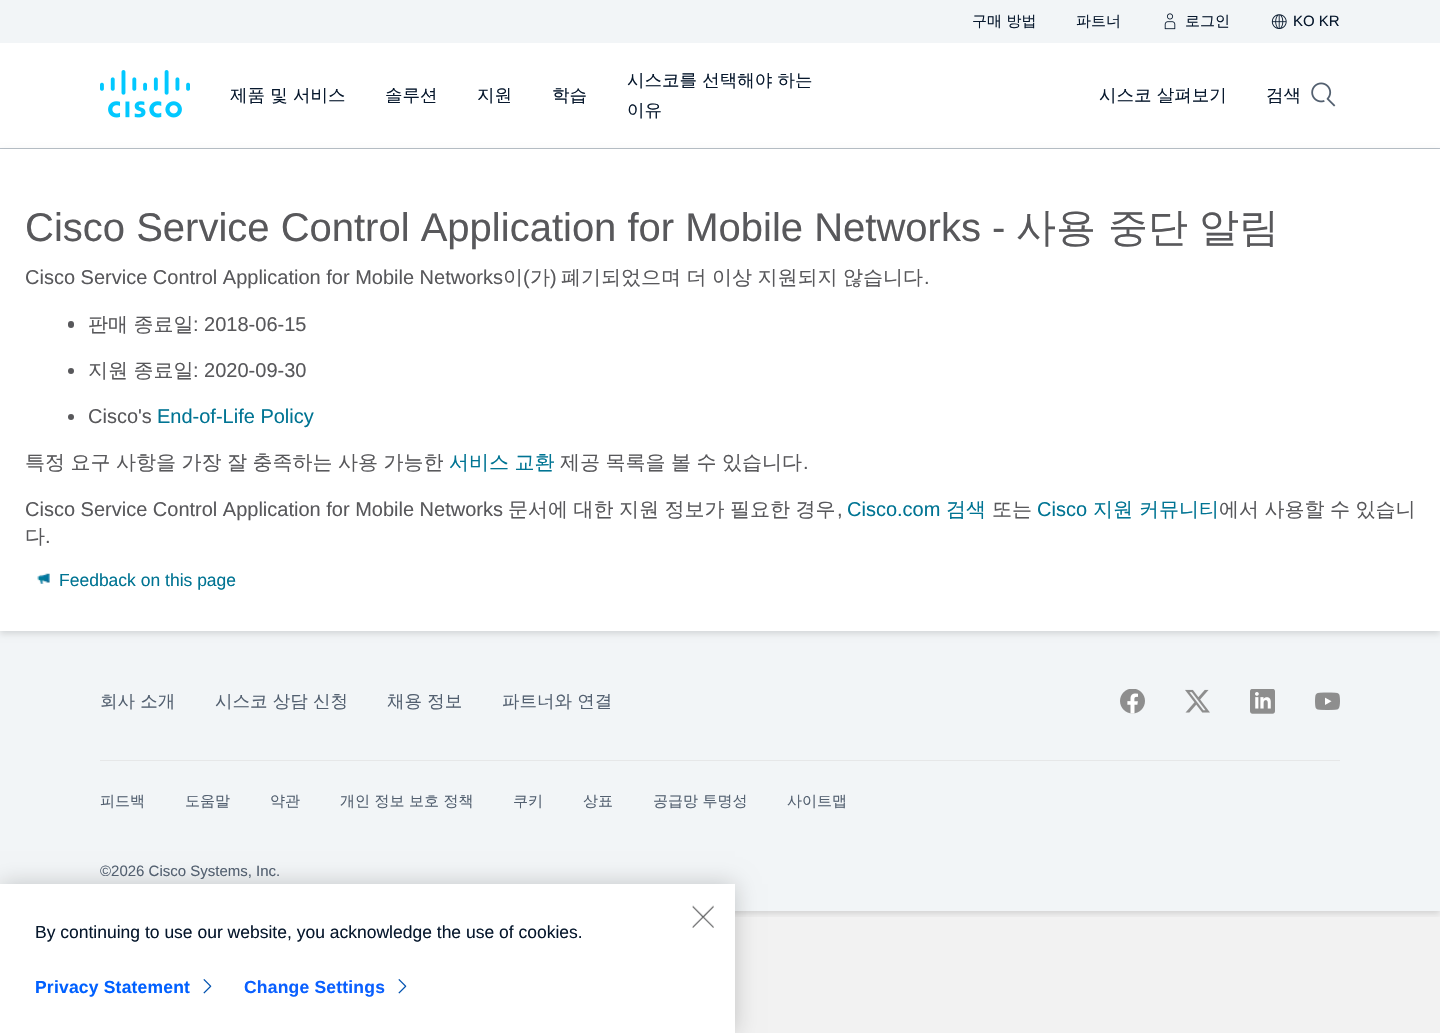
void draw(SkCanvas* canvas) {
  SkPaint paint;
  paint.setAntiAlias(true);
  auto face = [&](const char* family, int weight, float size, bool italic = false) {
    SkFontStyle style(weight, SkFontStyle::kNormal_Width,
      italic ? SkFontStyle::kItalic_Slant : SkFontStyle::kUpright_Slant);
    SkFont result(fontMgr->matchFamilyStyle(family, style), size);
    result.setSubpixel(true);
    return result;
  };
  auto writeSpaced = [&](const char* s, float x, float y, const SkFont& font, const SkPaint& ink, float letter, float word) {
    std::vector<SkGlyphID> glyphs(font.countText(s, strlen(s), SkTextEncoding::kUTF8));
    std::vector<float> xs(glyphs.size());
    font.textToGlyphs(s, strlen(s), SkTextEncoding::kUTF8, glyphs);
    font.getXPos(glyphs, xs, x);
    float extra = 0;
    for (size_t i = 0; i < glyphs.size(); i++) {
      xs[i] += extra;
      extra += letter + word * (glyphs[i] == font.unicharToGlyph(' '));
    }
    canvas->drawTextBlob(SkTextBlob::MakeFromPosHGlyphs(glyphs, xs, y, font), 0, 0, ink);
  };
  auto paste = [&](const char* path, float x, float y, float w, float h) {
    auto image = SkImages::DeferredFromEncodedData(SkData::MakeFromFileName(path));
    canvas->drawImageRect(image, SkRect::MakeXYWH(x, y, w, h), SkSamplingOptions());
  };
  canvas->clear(0xfff2f2f2);
  paint.setColor(0xfff2f5f7);
  canvas->drawRect(SkRect::MakeXYWH(0, 0, 1440, 43), paint);
  paste("img/1.png", 1164, 13, 12, 17);
  paste("img/2.png", 1271, 14, 16, 15);
  paint.setColor(0xffffffff);
  canvas->drawRect(SkRect::MakeXYWH(0, 43, 1440, 105), paint);
  paint.setColor(0xffb9c1c9);
  canvas->drawRect(SkRect::MakeXYWH(0, 148, 1440, 1), paint);
  paste("img/3.png", 100, 70, 90, 48);
  paste("img/4.png", 1311, 82, 25, 25);
  paint.setColor(0xfff2f5f7);
  canvas->drawRect(SkRect::MakeXYWH(0, 631, 1440, 280), paint);
  paint.setColor(0x1f000000);
  paint.setMaskFilter(SkMaskFilter::MakeBlur(kNormal_SkBlurStyle, 3));
  canvas->drawRect(SkRect::MakeXYWH(0, 151, 1440, 483), paint);
  paint.setMaskFilter(nullptr);
  canvas->save();
  canvas->clipRect(SkRect::MakeXYWH(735, 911, 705, 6));
  paint.setMaskFilter(SkMaskFilter::MakeBlur(kNormal_SkBlurStyle, 3));
  canvas->drawRect(SkRect::MakeXYWH(0, 634, 1440, 280), paint);
  paint.setMaskFilter(nullptr);
  canvas->restore();
  paint.setColor(0xffffffff);
  canvas->drawRect(SkRect::MakeXYWH(0, 149, 1440, 482), paint);
  paint.setColor(0xff58585b);
  canvas->drawRoundRect(SkRect::MakeXYWH(68, 321, 6, 7), 3, 3, paint);
  canvas->drawCircle(71, 371, 3, paint);
  canvas->drawCircle(71, 417, 3, paint);
  paste("img/5.png", 37, 573, 13, 11);
  paste("img/6.png", 1120, 689, 25, 25);
  paste("img/7.png", 1185, 689, 25, 24);
  paste("img/8.png", 1250, 689, 25, 25);
  paste("img/9.png", 1315, 692, 25, 18);
  paint.setColor(0xffe6e7e8);
  canvas->drawRect(SkRect::MakeXYWH(100, 760, 1240, 1), paint);
  paint.setColor(0x33000000);
  paint.setMaskFilter(SkMaskFilter::MakeBlur(kNormal_SkBlurStyle, 11));
  canvas->drawRect(SkRect::MakeXYWH(0, 884, 735, 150), paint);
  paint.setMaskFilter(nullptr);
  paint.setColor(0xffffffff);
  canvas->drawRect(SkRect::MakeXYWH(0, 884, 735, 149), paint);
  paste("img/10.png", 692, 905, 22, 23);
  paste("img/11.png", 203, 979, 9, 15);
  paste("img/11.png", 398, 979, 9, 15);
  auto f0 = face("WenQuanYi Zen Hei", 500, 15);
  paint.setColor(0xff07182d);
  {
    const struct { const char* s; float x, y; } items[] = {
      {"구매 방법", 972, 26},
      {"파트너", 1076, 26},
      {"로그인", 1185, 26},
    };
    for (auto [s, x, y] : items) {
      canvas->drawString(s, x, y, f0, paint);
    }
  }
  auto f1 = face("Liberation Sans", 400, 15);
  canvas->drawString("KO KR", 1293, 26, f1, paint);
  auto f2 = face("WenQuanYi Zen Hei", 500, 17.5f);
  {
    const struct { const char* s; float x, y; } items[] = {
      {"제품 및 서비스", 230, 101},
      {"솔루션", 385, 101},
      {"지원", 477, 101},
      {"학습", 552, 101},
      {"시스코를 선택해야 하는", 627, 86},
      {"이유", 627, 116},
      {"시스코 살펴보기", 1099, 101},
      {"검색", 1266, 101},
    };
    for (auto [s, x, y] : items) {
      canvas->drawString(s, x, y, f2, paint);
    }
  }
  auto f3 = face("Liberation Sans", 400, 40);
  paint.setColor(0xff58585b);
  canvas->drawString("Cisco Service Control Application for Mobile Networks -", 25, 241, f3, paint);
  auto f4 = face("WenQuanYi Zen Hei", 500, 40);
  {
    const struct { const char* s; float x, y; } items[] = {
      {"사용", 1016, 241},
      {"중단", 1108, 241},
      {"알림", 1199, 241},
    };
    for (auto [s, x, y] : items) {
      canvas->drawString(s, x, y, f4, paint);
    }
  }
  auto f5 = face("Liberation Sans", 400, 20);
  canvas->drawString("Cisco Service Control Application for Mobile Networks", 25, 284, f5, paint);
  auto f6 = face("WenQuanYi Zen Hei", 500, 20);
  canvas->drawString("이", 503, 284, f6, paint);
  canvas->drawString("(", 523, 284, f5, paint);
  canvas->drawString("가", 530, 284, f6, paint);
  canvas->drawString(")", 550, 284, f5, paint);
  writeSpaced("폐기되었으며 더 이상 지원되지 않습니다", 561, 284, f6, paint, 0, -0.5f);
  canvas->drawString(".", 924, 284, f5, paint);
  writeSpaced("판매 종료일", 88, 331, f6, paint, 0, -0.5f);
  canvas->drawString(": 2018-06-15", 193, 331, f5, paint);
  writeSpaced("지원 종료일", 88, 377, f6, paint, 0, -0.5f);
  canvas->drawString(": 2020-09-30", 193, 377, f5, paint);
  canvas->drawString("Cisco's", 88, 423, f5, paint);
  paint.setColor(0xff007493);
  canvas->drawString("End-of-Life Policy", 157, 423, f5, paint);
  paint.setColor(0xff58585b);
  writeSpaced("특정 요구 사항을 가장 잘 충족하는 사용 가능한", 25, 469, f6, paint, 0, -0.5f);
  paint.setColor(0xff007493);
  writeSpaced("서비스 교환", 449, 469, f6, paint, 0, -0.5f);
  paint.setColor(0xff58585b);
  writeSpaced("제공 목록을 볼 수 있습니다", 560, 469, f6, paint, 0, -0.5f);
  canvas->drawString(".", 803, 469, f5, paint);
  canvas->drawString("Cisco Service Control Application for Mobile Networks", 25, 516, f5, paint);
  writeSpaced("문서에 대한 지원 정보가 필요한 경우", 508, 516, f6, paint, 0, -0.5f);
  canvas->drawString(",", 837, 516, f5, paint);
  paint.setColor(0xff007493);
  canvas->drawString("Cisco.com", 847, 516, f5, paint);
  canvas->drawString("검색", 946, 516, f6, paint);
  paint.setColor(0xff58585b);
  canvas->drawString("또는", 992, 516, f6, paint);
  paint.setColor(0xff007493);
  canvas->drawString("Cisco", 1037, 516, f5, paint);
  canvas->drawString("지원 커뮤니티", 1093, 516, f6, paint);
  paint.setColor(0xff58585b);
  writeSpaced("에서 사용할 수 있습니", 1219, 516, f6, paint, 0, -0.5f);
  canvas->drawString("다", 25, 543, f6, paint);
  canvas->drawString(".", 45, 543, f5, paint);
  auto f7 = face("Liberation Sans", 400, 17.5f);
  paint.setColor(0xff007493);
  canvas->drawString("Feedback on this page", 59, 586, f7, paint);
  paint.setColor(0xff536070);
  {
    const struct { const char* s; float x, y; } items[] = {
      {"회사 소개", 100, 707},
      {"시스코 상담 신청", 215, 707},
      {"채용 정보", 387, 707},
      {"파트너와 연결", 502, 707},
    };
    for (auto [s, x, y] : items) {
      canvas->drawString(s, x, y, f2, paint);
    }
  }
  {
    const struct { const char* s; float x, y; } items[] = {
      {"피드백", 100, 806},
      {"도움말", 185, 806},
      {"약관", 270, 806},
      {"개인 정보 보호 정책", 340, 806},
      {"쿠키", 513, 806},
      {"상표", 583, 806},
      {"공급망 투명성", 653, 806},
      {"사이트맵", 787, 806},
    };
    for (auto [s, x, y] : items) {
      canvas->drawString(s, x, y, f0, paint);
    }
  }
  canvas->drawString("©2026 Cisco Systems, Inc.", 100, 876, f1, paint);
  paint.setColor(0xff07182d);
  canvas->drawString("By continuing to use our website, you acknowledge the use of cookies.", 35, 938, f7, paint);
  auto f8 = face("Liberation Sans", 700, 17.5f);
  paint.setColor(0xff0060ff);
  writeSpaced("Privacy Statement", 35, 993, f8, paint, 0.2f, 0);
  paint.setColor(0xff0a60ff);
  writeSpaced("Change Settings", 244, 993, f8, paint, 0.2f, 0);
}
